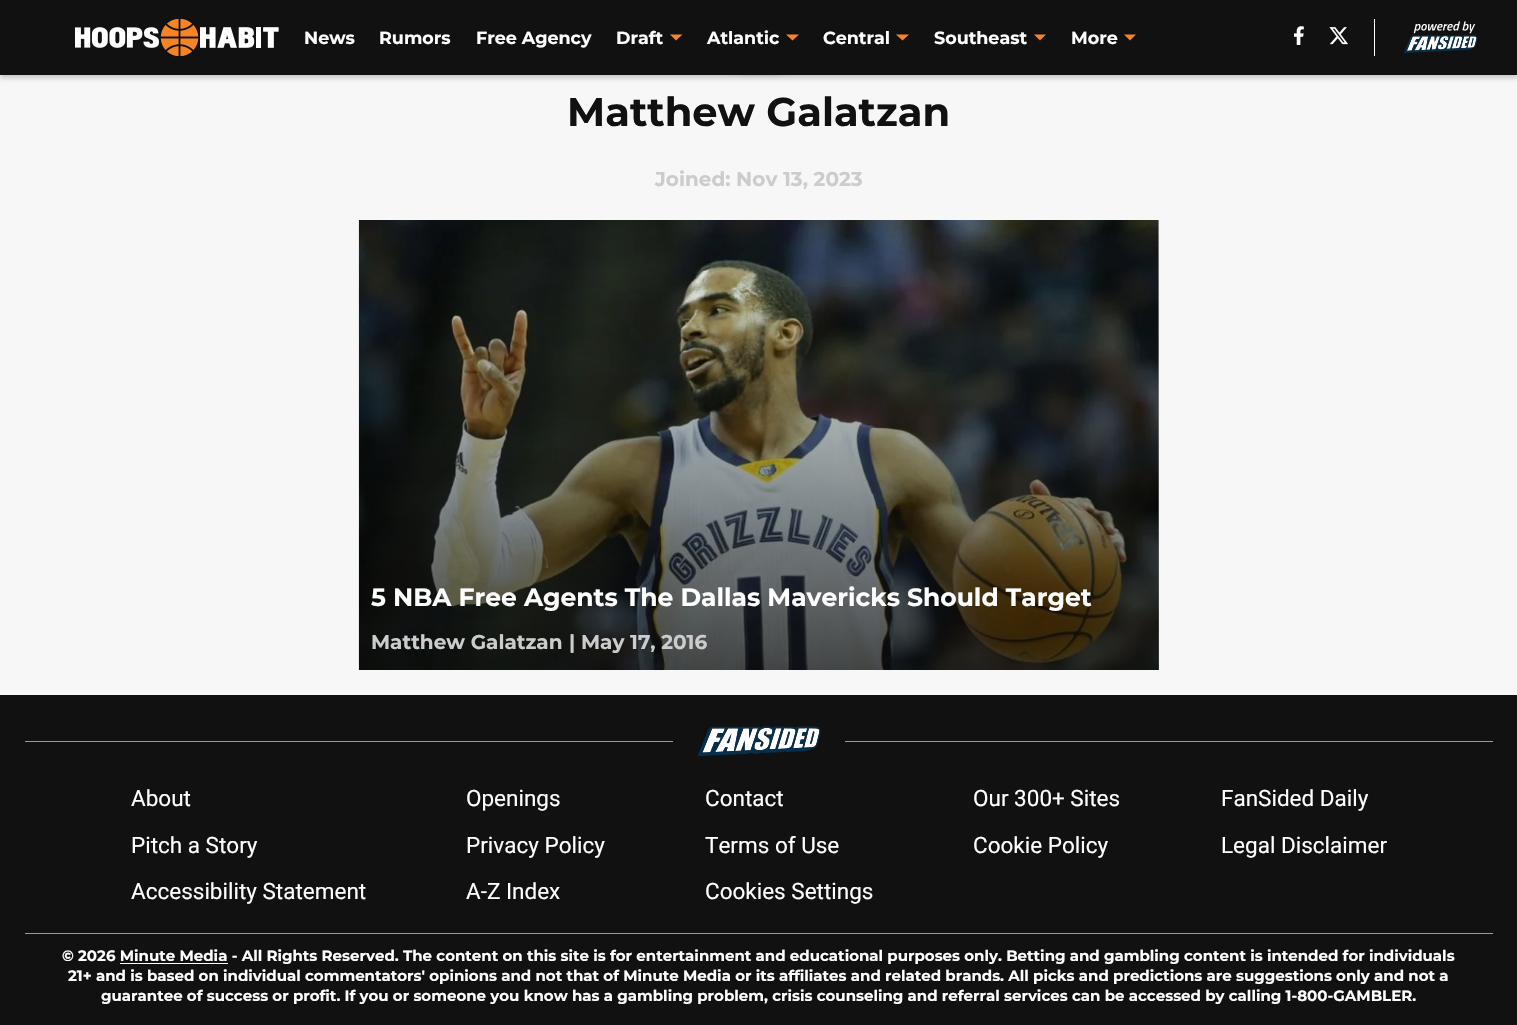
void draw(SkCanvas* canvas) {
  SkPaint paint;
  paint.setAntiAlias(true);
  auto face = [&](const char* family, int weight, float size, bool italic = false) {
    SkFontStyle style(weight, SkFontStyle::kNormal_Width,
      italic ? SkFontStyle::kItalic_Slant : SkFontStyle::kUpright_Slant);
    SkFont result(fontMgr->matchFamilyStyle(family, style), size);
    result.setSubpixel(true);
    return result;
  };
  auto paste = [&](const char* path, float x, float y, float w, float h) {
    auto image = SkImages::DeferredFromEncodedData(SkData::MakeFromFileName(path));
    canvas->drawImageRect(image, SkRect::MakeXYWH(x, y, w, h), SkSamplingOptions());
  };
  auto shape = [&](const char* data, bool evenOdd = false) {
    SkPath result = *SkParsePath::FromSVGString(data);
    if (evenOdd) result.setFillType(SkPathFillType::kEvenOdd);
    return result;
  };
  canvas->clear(0xfff7f7f7);
  paint.setColor(0x33000000);
  paint.setMaskFilter(SkMaskFilter::MakeBlur(kNormal_SkBlurStyle, 2.5f));
  canvas->drawRect(SkRect::MakeXYWH(0, 3, 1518, 75), paint);
  paint.setMaskFilter(nullptr);
  paint.setMaskFilter(SkMaskFilter::MakeBlur(kNormal_SkBlurStyle, 2.5f));
  canvas->drawRoundRect(SkRect::MakeXYWH(659, -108, 200, 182), 100, 100, paint);
  paint.setMaskFilter(nullptr);
  paint.setColor(0xff111111);
  canvas->drawRect(SkRect::MakeXYWH(0, 0, 1517, 75), paint);
  paste("img/1.png", 75, 19, 204, 37);
  paint.setColor(0xfff58426);
  canvas->drawPath(shape("M670 34.5L676 40.5L682.5 34.5Z", true), paint);
  canvas->drawPath(shape("M786 34.5L792.5 40.5L799 34.5Z", true), paint);
  canvas->drawPath(shape("M896 34.5L902.5 40.5L909 34.5Z", true), paint);
  canvas->drawPath(shape("M1034 34.5L1040 40.5L1046 34.5Z", true), paint);
  canvas->drawPath(shape("M1124 34.5L1130 40.5L1136 34.5Z", true), paint);
  paste("img/2.png", 1294, 26, 10, 19);
  paste("img/3.png", 1329, 27, 19, 18);
  paint.setColor(0xffffffff);
  canvas->drawRect(SkRect::MakeXYWH(1374, 19, 1, 37), paint);
  paste("img/4.png", 1404, 21, 74, 32);
  paste("img/5.png", 358, 220, 801, 450);
  {
    const SkColor colors[] = {0xb3000000, 0x00000000};
    const float stops[] = {0, 1};
    const SkPoint ends[] = {{759, 670}, {759, 220}};
    paint.setShader(SkGradientShader::MakeLinear(ends, colors, stops, 2, SkTileMode::kClamp));
    paint.setAlpha(255);
  }
  canvas->drawRect(SkRect::MakeXYWH(359, 234, 800, 436), paint);
  paint.setShader(nullptr);
  paint.setColor(0xff111111);
  canvas->drawRect(SkRect::MakeXYWH(0, 695, 1517, 330), paint);
  paint.setColor(0xfff58426);
  canvas->drawRect(SkRect::MakeXYWH(25, 741, 648, 1), paint);
  paste("img/6.png", 698, 726, 122, 30);
  {
    const struct { float x, y, w, h; SkColor color; } items[] = {
      {845, 741, 648, 1, 0xfff58426},
      {25, 933, 1468, 1, 0xfff58426},
      {120, 963, 108, 1, 0xffffffff},
    };
    for (auto [x, y, w, h, color] : items) {
      paint.setColor(color);
      canvas->drawRect(SkRect::MakeXYWH(x, y, w, h), paint);
    }
  }
  auto f0 = face("Montserrat", 700, 17.5f);
  {
    const struct { const char* s; float x, y; } items[] = {
      {"News", 304, 44},
      {"Rumors", 379, 44},
      {"Free Agency", 476, 44},
      {"Draft", 616, 44},
      {"Atlantic", 707, 44},
      {"Central", 823, 44},
      {"Southeast", 934, 44},
      {"More", 1071, 44},
    };
    for (auto [s, x, y] : items) {
      canvas->drawString(s, x, y, f0, paint);
    }
  }
  auto f1 = face("Montserrat", 700, 40);
  paint.setColor(0xff111111);
  canvas->drawString("Matthew Galatzan", 567, 126, f1, paint);
  auto f2 = face("Montserrat", 700, 20);
  paint.setColor(0xffcccccc);
  canvas->drawString("Joined: Nov 13, 2023", 655, 186, f2, paint);
  auto f3 = face("Montserrat", 700, 25);
  paint.setColor(0xffffffff);
  canvas->drawString("5 NBA Free Agents The Dallas Mavericks Should Target", 371, 606, f3, paint);
  paint.setColor(0xffcccccc);
  {
    const struct { const char* s; float x, y; } items[] = {
      {"Matthew Galatzan", 371, 649},
      {"|", 569, 649},
      {"May 17, 2016", 581, 649},
    };
    for (auto [s, x, y] : items) {
      canvas->drawString(s, x, y, f2, paint);
    }
  }
  auto f4 = face("Roboto", 400, 22.5f);
  paint.setColor(0xffffffff);
  {
    const struct { const char* s; float x, y; } items[] = {
      {"About", 131, 806},
      {"Openings", 466, 806},
      {"Contact", 705, 806},
      {"Our 300+ Sites", 973, 806},
      {"FanSided Daily", 1221, 806},
      {"Pitch a Story", 131, 853},
      {"Privacy Policy", 466, 853},
      {"Terms of Use", 705, 853},
      {"Cookie Policy", 973, 853},
      {"Legal Disclaimer", 1221, 853},
      {"Accessibility Statement", 131, 899},
      {"A-Z Index", 466, 899},
      {"Cookies Settings", 705, 899},
    };
    for (auto [s, x, y] : items) {
      canvas->drawString(s, x, y, f4, paint);
    }
  }
  auto f5 = face("Montserrat", 700, 15);
  {
    const struct { const char* s; float x, y; } items[] = {
      {"© 2026 Minute Media - All Rights Reserved. The content on this site is for entertainment and educational purposes only. Betting and gambling content is intended for individuals", 62, 961},
      {"21+ and is based on individual commentators' opinions and not that of Minute Media or its affiliates and related brands. All picks and predictions are suggestions only and not a", 68, 981},
      {"guarantee of success or profit. If you or someone you know has a gambling problem, crisis counseling and referral services can be accessed by calling 1-800-GAMBLER.", 101, 1001},
    };
    for (auto [s, x, y] : items) {
      canvas->drawString(s, x, y, f5, paint);
    }
  }
}
